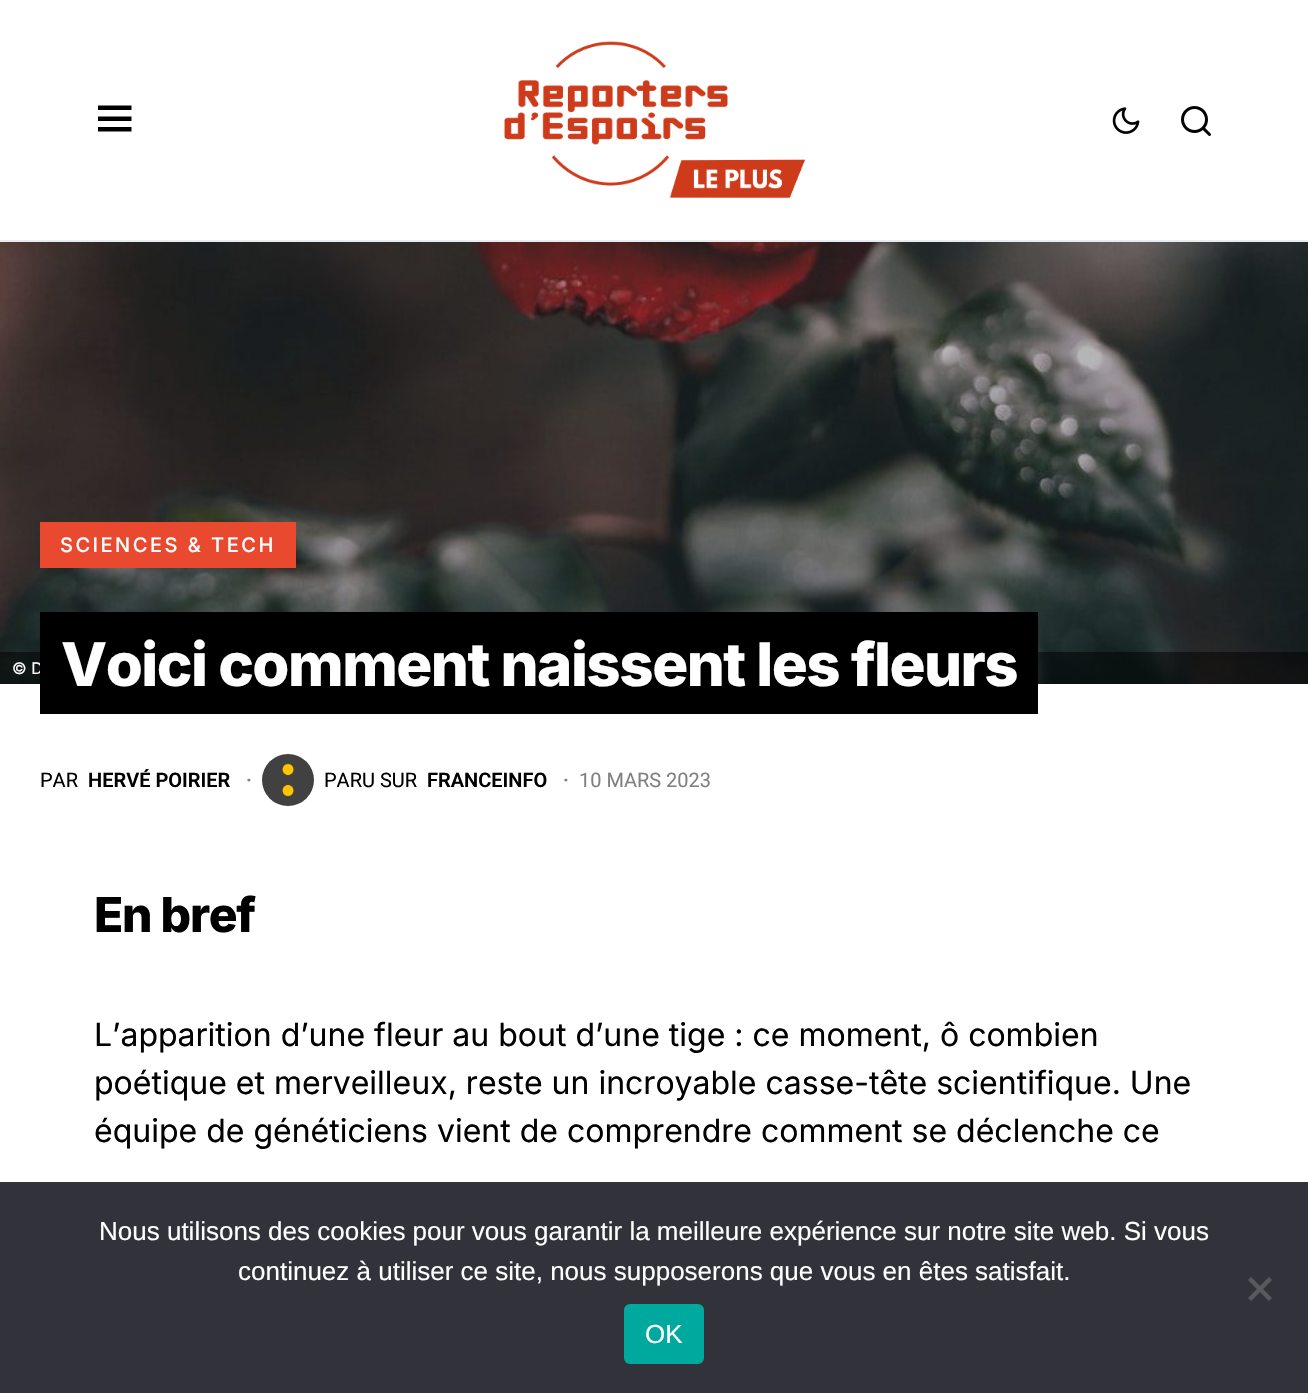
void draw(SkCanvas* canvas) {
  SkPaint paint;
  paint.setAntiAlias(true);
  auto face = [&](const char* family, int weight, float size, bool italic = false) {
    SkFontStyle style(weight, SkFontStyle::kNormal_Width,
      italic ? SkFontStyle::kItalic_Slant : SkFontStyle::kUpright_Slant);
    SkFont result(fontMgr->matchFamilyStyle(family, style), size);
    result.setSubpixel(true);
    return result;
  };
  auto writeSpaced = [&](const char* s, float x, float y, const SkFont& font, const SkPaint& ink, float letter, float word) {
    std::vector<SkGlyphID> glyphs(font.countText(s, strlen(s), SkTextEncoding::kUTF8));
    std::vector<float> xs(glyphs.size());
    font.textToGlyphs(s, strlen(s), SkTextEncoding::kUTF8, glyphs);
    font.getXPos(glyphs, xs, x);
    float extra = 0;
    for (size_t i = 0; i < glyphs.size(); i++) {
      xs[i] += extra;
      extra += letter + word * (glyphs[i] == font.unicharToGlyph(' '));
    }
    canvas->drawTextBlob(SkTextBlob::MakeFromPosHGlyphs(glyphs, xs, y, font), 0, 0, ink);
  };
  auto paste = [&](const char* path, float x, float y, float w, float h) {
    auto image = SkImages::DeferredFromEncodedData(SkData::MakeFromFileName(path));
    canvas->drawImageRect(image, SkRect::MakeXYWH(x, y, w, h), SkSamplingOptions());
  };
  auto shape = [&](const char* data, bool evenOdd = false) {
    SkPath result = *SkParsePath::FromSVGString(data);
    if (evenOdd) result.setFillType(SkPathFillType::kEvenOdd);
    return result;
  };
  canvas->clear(0xffffffff);
  paint.setColor(0xffe9ecef);
  canvas->drawRect(SkRect::MakeXYWH(0, 240, 1308, 2), paint);
  paint.setColor(0xff000000);
  canvas->drawPath(shape("M98 105.5H131.5V110H98ZM98 116.5H131.5V121H98ZM98 127H131.5V131.5H98Z"), paint);
  paste("img/1.png", 504, 41, 302, 158);
  paste("img/2.png", 1112, 107, 28, 27);
  paste("img/3.png", 1181, 106, 30, 30);
  paste("img/4.png", 0, 242, 1308, 442);
  paint.setColor(0x80000000);
  canvas->drawRect(SkRect::MakeXYWH(0, 652, 1308, 32), paint);
  paint.setColor(0xffe9492e);
  canvas->drawRect(SkRect::MakeXYWH(40, 522, 256, 46), paint);
  paste("img/5.png", 262, 754, 52, 52);
  paint.setColor(0xff32323a);
  canvas->drawRect(SkRect::MakeXYWH(0, 1182, 1308, 211), paint);
  paint.setColor(0xff59595d);
  canvas->drawPath(shape("M1269 1277L1272 1280L1251 1301L1248 1298Z"), paint);
  canvas->drawPath(shape("M1248 1280L1251 1277L1272 1298L1269 1301Z"), paint);
  paint.setColor(0xff00a99d);
  canvas->drawRoundRect(SkRect::MakeXYWH(624, 1304, 80, 60), 6, 6, paint);
  auto f0 = face("Inter", 400, 16);
  paint.setColor(0xffffffff);
  canvas->drawString("© D", 12, 674, f0, paint);
  auto f1 = face("Inter", 500, 20);
  writeSpaced("SCIENCES & TECH", 60, 552, f1, paint, 2.5f, 0);
  paint.setColor(0xff000000);
  canvas->drawRect(SkRect::MakeXYWH(40, 612, 998, 102), paint);
  auto f2 = face("Inter", 800, 60);
  paint.setColor(0xffffffff);
  writeSpaced("Voici comment naissent les fleurs", 61, 686, f2, paint, -1.5f, 0);
  auto f3 = face("Roboto", 400, 20);
  paint.setColor(0xff000000);
  canvas->drawString("PAR", 40, 787, f3, paint);
  auto f4 = face("Roboto", 600, 20);
  canvas->drawString("HERVÉ POIRIER", 88, 787, f4, paint);
  paint.setColor(0xff818181);
  canvas->drawString("·", 246, 787, f4, paint);
  paint.setColor(0xff000000);
  canvas->drawString("PARU SUR", 324, 787, f3, paint);
  canvas->drawString("FRANCEINFO", 427, 787, f4, paint);
  paint.setColor(0xff818181);
  canvas->drawString("·", 563, 787, f4, paint);
  canvas->drawString("10 MARS 2023", 579, 787, f3, paint);
  auto f5 = face("Inter", 800, 48);
  paint.setColor(0xff000000);
  writeSpaced("En bref", 94, 932, f5, paint, -1.25f, 0);
  auto f6 = face("Inter", 400, 32);
  {
    const struct { const char* s; float x, y; } items[] = {
      {"L’apparition d’une fleur au bout d’une tige : ce moment, ô combien", 94, 1046},
      {"poétique et merveilleux, reste un incroyable casse-tête scientifique. Une", 94, 1094},
      {"équipe de généticiens vient de comprendre comment se déclenche ce", 94, 1142},
    };
    for (auto [s, x, y] : items) {
      canvas->drawString(s, x, y, f6, paint);
    }
  }
  auto f7 = face("Liberation Sans", 400, 26);
  paint.setColor(0xffffffff);
  {
    const struct { const char* s; float x, y; } items[] = {
      {"Nous utilisons des cookies pour vous garantir la meilleure expérience sur notre site web. Si vous", 99, 1240},
      {"continuez à utiliser ce site, nous supposerons que vous en êtes satisfait.", 238, 1280},
      {"OK", 645, 1343},
    };
    for (auto [s, x, y] : items) {
      canvas->drawString(s, x, y, f7, paint);
    }
  }
}
